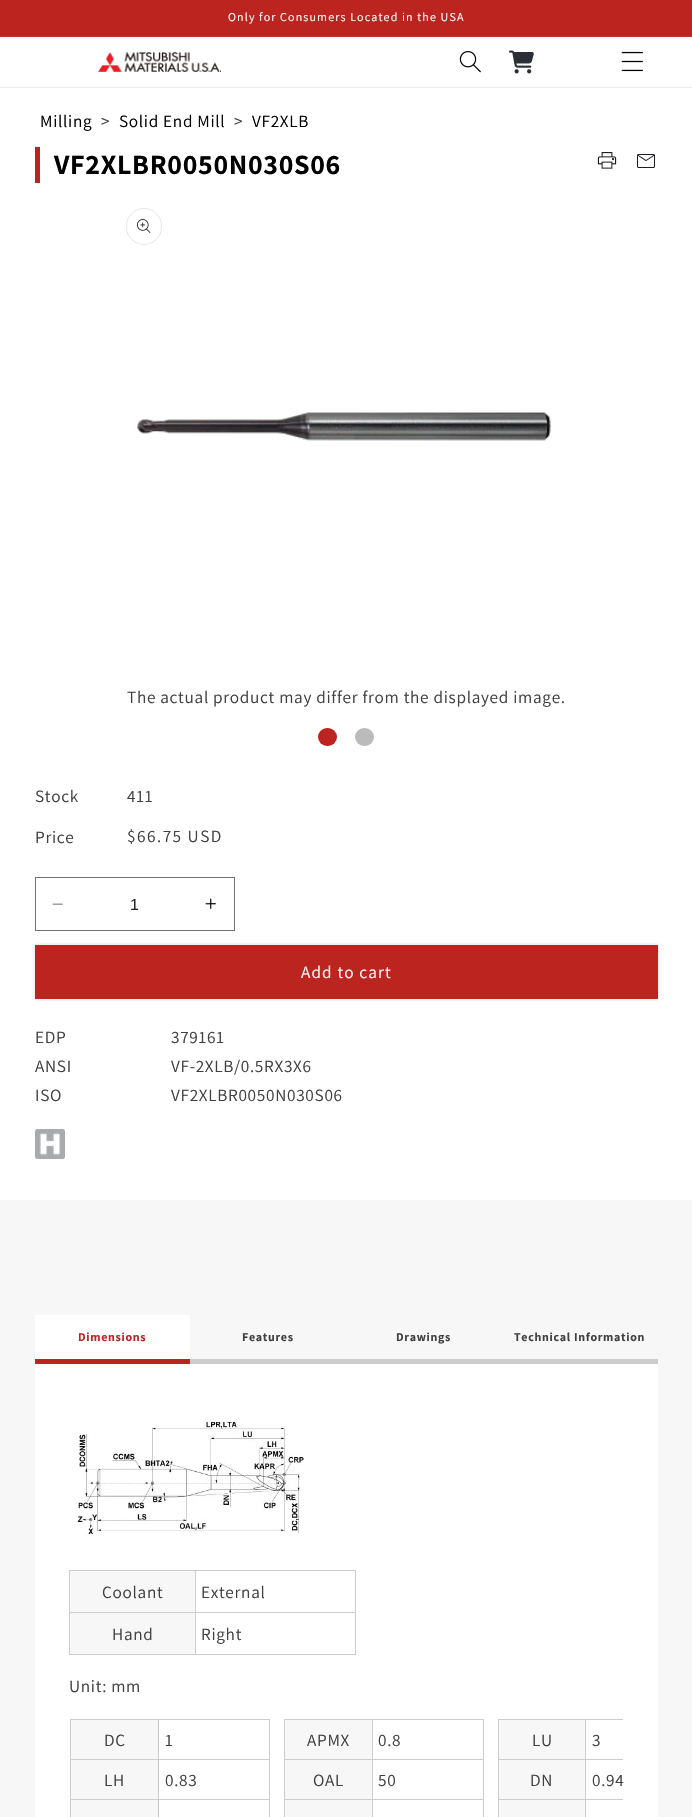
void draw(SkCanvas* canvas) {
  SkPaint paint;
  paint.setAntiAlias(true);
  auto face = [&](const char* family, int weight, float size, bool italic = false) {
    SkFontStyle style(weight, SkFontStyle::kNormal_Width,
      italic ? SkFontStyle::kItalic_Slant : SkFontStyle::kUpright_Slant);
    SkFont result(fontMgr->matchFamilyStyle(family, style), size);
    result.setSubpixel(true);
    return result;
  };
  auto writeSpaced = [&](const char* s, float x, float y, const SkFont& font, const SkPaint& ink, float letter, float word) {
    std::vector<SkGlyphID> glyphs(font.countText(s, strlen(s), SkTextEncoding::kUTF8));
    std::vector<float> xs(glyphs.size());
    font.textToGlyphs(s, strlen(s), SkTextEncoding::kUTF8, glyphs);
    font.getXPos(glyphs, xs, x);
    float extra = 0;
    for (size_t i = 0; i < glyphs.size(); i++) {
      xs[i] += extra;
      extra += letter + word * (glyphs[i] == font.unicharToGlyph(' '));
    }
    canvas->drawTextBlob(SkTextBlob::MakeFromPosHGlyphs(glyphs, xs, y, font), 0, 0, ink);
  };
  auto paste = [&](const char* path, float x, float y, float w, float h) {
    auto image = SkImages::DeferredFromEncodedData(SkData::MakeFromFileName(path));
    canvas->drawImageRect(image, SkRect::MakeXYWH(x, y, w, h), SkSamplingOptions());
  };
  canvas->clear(0xffffffff);
  {
    const struct { float x, y, w, h; SkColor color; } items[] = {
      {0, 0, 692, 36, 0xffbc2420},
      {0, 36, 692, 1, 0xffc13632},
      {0, 87, 692, 1, 0xffebebeb},
    };
    for (auto [x, y, w, h, color] : items) {
      paint.setColor(color);
      canvas->drawRect(SkRect::MakeXYWH(x, y, w, h), paint);
    }
  }
  paste("img/1.png", 98, 52, 123, 20);
  paste("img/2.png", 459, 51, 22, 22);
  paste("img/3.png", 509, 50, 25, 24);
  paste("img/4.png", 621, 51, 22, 21);
  paint.setColor(0xffbc2420);
  canvas->drawRect(SkRect::MakeXYWH(35, 147, 5, 36), paint);
  paste("img/5.png", 597, 152, 20, 17);
  paste("img/6.png", 637, 154, 18, 14);
  paint.setStroke(true);
  paint.setStrokeWidth(1);
  paint.setColor(0xffe6e6e6);
  canvas->drawRoundRect(SkRect::MakeXYWH(126.5f, 208.5f, 35, 36), 17.5f, 17.5f, paint);
  paste("img/7.png", 137, 219, 14, 14);
  paste("img/8.png", 137, 412, 414, 29);
  paint.setStroke(false);
  paint.setColor(0xffbc2420);
  canvas->drawRoundRect(SkRect::MakeXYWH(318, 728, 19, 18), 9, 9, paint);
  paint.setColor(0xffbbbbbb);
  canvas->drawRoundRect(SkRect::MakeXYWH(355, 728, 19, 18), 9, 9, paint);
  paste("img/9.png", 52, 903, 11, 2);
  paste("img/10.png", 205, 898, 11, 11);
  paint.setStroke(true);
  paint.setColor(0xff737373);
  canvas->drawRect(SkRect::MakeXYWH(35.5f, 877.5f, 199, 53), paint);
  paint.setStroke(false);
  paint.setColor(0x29000000);
  paint.setMaskFilter(SkMaskFilter::MakeBlur(kNormal_SkBlurStyle, 2));
  canvas->drawRect(SkRect::MakeXYWH(35, 945, 623, 54), paint);
  paint.setMaskFilter(nullptr);
  paint.setColor(0xffbc2420);
  canvas->drawRect(SkRect::MakeXYWH(35, 945, 623, 54), paint);
  paste("img/11.png", 35, 1129, 30, 30);
  {
    const struct { float x, y, w, h; SkColor color; } items[] = {
      {0, 1200, 692, 617, 0xfff7f7f7},
      {35, 1315, 155, 44, 0xffffffff},
      {35, 1359, 155, 5, 0xffbc2420},
      {190, 1359, 468, 5, 0xffcccccc},
      {35, 1364, 623, 453, 0xffffffff},
    };
    for (auto [x, y, w, h, color] : items) {
      paint.setColor(color);
      canvas->drawRect(SkRect::MakeXYWH(x, y, w, h), paint);
    }
  }
  paste("img/12.png", 75, 1421, 229, 115);
  paint.setColor(0xfff7f7f7);
  canvas->drawRect(SkRect::MakeXYWH(69.5f, 1570.5f, 126, 42), paint);
  paint.setStroke(true);
  paint.setColor(0xffcdcdcd);
  canvas->drawRect(SkRect::MakeXYWH(69.5f, 1570.5f, 126, 42), paint);
  canvas->drawRect(SkRect::MakeXYWH(195.5f, 1570.5f, 160, 42), paint);
  paint.setStroke(false);
  paint.setColor(0xfff7f7f7);
  canvas->drawRect(SkRect::MakeXYWH(69.5f, 1612.5f, 126, 42), paint);
  paint.setStroke(true);
  paint.setColor(0xffcdcdcd);
  canvas->drawRect(SkRect::MakeXYWH(69.5f, 1612.5f, 126, 42), paint);
  canvas->drawRect(SkRect::MakeXYWH(195.5f, 1612.5f, 160, 42), paint);
  canvas->drawRect(SkRect::MakeXYWH(70.5f, 1719.5f, 199, 40), paint);
  paint.setStroke(false);
  paint.setColor(0xfff7f7f7);
  canvas->drawRect(SkRect::MakeXYWH(71, 1720, 87, 39), paint);
  paint.setColor(0xffcdcdcd);
  canvas->drawRect(SkRect::MakeXYWH(158, 1720, 1, 39), paint);
  paint.setStroke(true);
  canvas->drawRect(SkRect::MakeXYWH(284.5f, 1719.5f, 199, 40), paint);
  paint.setStroke(false);
  paint.setColor(0xfff7f7f7);
  canvas->drawRect(SkRect::MakeXYWH(285, 1720, 87, 39), paint);
  paint.setColor(0xffcdcdcd);
  canvas->drawRect(SkRect::MakeXYWH(372, 1720, 1, 39), paint);
  canvas->save();
  canvas->clipRect(SkRect::MakeXYWH(69, 1718, 554, 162));
  paint.setStroke(true);
  canvas->drawRect(SkRect::MakeXYWH(498.5f, 1719.5f, 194, 40), paint);
  canvas->restore();
  paint.setStroke(false);
  paint.setColor(0xfff7f7f7);
  canvas->drawRect(SkRect::MakeXYWH(499, 1720, 86, 39), paint);
  paint.setColor(0xffcdcdcd);
  canvas->drawRect(SkRect::MakeXYWH(585, 1720, 1, 39), paint);
  paint.setStroke(true);
  canvas->drawRect(SkRect::MakeXYWH(70.5f, 1759.5f, 199, 40), paint);
  paint.setStroke(false);
  paint.setColor(0xfff7f7f7);
  canvas->drawRect(SkRect::MakeXYWH(71, 1760, 87, 39), paint);
  paint.setColor(0xffcdcdcd);
  canvas->drawRect(SkRect::MakeXYWH(158, 1760, 1, 39), paint);
  paint.setStroke(true);
  canvas->drawRect(SkRect::MakeXYWH(284.5f, 1759.5f, 199, 40), paint);
  paint.setStroke(false);
  paint.setColor(0xfff7f7f7);
  canvas->drawRect(SkRect::MakeXYWH(285, 1760, 87, 39), paint);
  paint.setColor(0xffcdcdcd);
  canvas->drawRect(SkRect::MakeXYWH(372, 1760, 1, 39), paint);
  canvas->save();
  canvas->clipRect(SkRect::MakeXYWH(69, 1718, 554, 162));
  paint.setStroke(true);
  canvas->drawRect(SkRect::MakeXYWH(498.5f, 1759.5f, 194, 40), paint);
  canvas->restore();
  paint.setStroke(false);
  paint.setColor(0xfff7f7f7);
  canvas->drawRect(SkRect::MakeXYWH(499, 1760, 86, 39), paint);
  paint.setColor(0xffcdcdcd);
  canvas->drawRect(SkRect::MakeXYWH(585, 1760, 1, 39), paint);
  paint.setStroke(true);
  canvas->drawRect(SkRect::MakeXYWH(70.5f, 1799.5f, 199, 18), paint);
  paint.setStroke(false);
  paint.setColor(0xfff7f7f7);
  canvas->drawRect(SkRect::MakeXYWH(71, 1800, 87, 17), paint);
  paint.setColor(0xffcdcdcd);
  canvas->drawRect(SkRect::MakeXYWH(158, 1800, 1, 17), paint);
  paint.setStroke(true);
  canvas->drawRect(SkRect::MakeXYWH(284.5f, 1799.5f, 199, 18), paint);
  paint.setStroke(false);
  paint.setColor(0xfff7f7f7);
  canvas->drawRect(SkRect::MakeXYWH(285, 1800, 87, 17), paint);
  paint.setColor(0xffcdcdcd);
  canvas->drawRect(SkRect::MakeXYWH(372, 1800, 1, 17), paint);
  canvas->save();
  canvas->clipRect(SkRect::MakeXYWH(69, 1718, 554, 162));
  paint.setStroke(true);
  canvas->drawRect(SkRect::MakeXYWH(498.5f, 1799.5f, 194, 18), paint);
  canvas->restore();
  paint.setStroke(false);
  paint.setColor(0xfff7f7f7);
  canvas->drawRect(SkRect::MakeXYWH(499, 1800, 86, 17), paint);
  paint.setColor(0xffcdcdcd);
  canvas->drawRect(SkRect::MakeXYWH(585, 1800, 1, 17), paint);
  auto f0 = face("Assistant", 400, 12);
  paint.setColor(0xffffffff);
  writeSpaced("Only for Consumers Located in the USA", 228, 21, f0, paint, 1.15f, 0);
  auto f1 = face("Assistant", 400, 17.25f);
  paint.setColor(0xff000000);
  writeSpaced("Milling", 40, 127, f1, paint, 0.7f, 0);
  paint.setColor(0xff404040);
  writeSpaced(">", 101, 127, f1, paint, 0.7f, 0);
  paint.setColor(0xff000000);
  writeSpaced("Solid End Mill", 119, 127, f1, paint, 0.7f, 0);
  paint.setColor(0xff404040);
  writeSpaced(">", 234, 127, f1, paint, 0.7f, 0);
  paint.setColor(0xff000000);
  writeSpaced("VF2XLB", 252, 127, f1, paint, 0.7f, 0);
  auto f2 = face("Assistant", 700, 28);
  writeSpaced("VF2XLBR0050N030S06", 54, 174, f2, paint, 0.7f, 0);
  paint.setColor(0xff404040);
  {
    const struct { const char* s; float x, y; } items[] = {
      {"The actual product may differ from the displayed image.", 127, 703},
      {"Stock", 35, 802},
      {"411", 127, 802},
      {"Price", 35, 843},
    };
    for (auto [s, x, y] : items) {
      writeSpaced(s, x, y, f1, paint, 0.7f, 0);
    }
  }
  writeSpaced("$66.75 USD", 127, 842, f1, paint, 1.5f, 0);
  auto f3 = face("Liberation Sans", 400, 16);
  paint.setColor(0xff262626);
  canvas->drawString("1", 130, 910, f3, paint);
  paint.setColor(0xffffffff);
  writeSpaced("Add to cart", 301, 978, f1, paint, 1.15f, 0);
  paint.setColor(0xff404040);
  {
    const struct { const char* s; float x, y; } items[] = {
      {"EDP", 35, 1043},
      {"379161", 171, 1043},
      {"ANSI", 35, 1072},
      {"VF-2XLB/0.5RX3X6", 171, 1072},
      {"ISO", 35, 1101},
      {"VF2XLBR0050N030S06", 171, 1101},
    };
    for (auto [s, x, y] : items) {
      writeSpaced(s, x, y, f1, paint, 0.7f, 0);
    }
  }
  auto f4 = face("Assistant", 700, 12);
  paint.setColor(0xffbc2420);
  writeSpaced("Dimensions", 78, 1341, f4, paint, 0.7f, 0);
  paint.setColor(0xff404040);
  {
    const struct { const char* s; float x, y; } items[] = {
      {"Features", 242, 1341},
      {"Drawings", 396, 1341},
      {"Technical Information", 514, 1341},
    };
    for (auto [s, x, y] : items) {
      writeSpaced(s, x, y, f4, paint, 0.7f, 0);
    }
  }
  {
    const struct { const char* s; float x, y; } items[] = {
      {"Coolant", 102, 1598},
      {"External", 201, 1598},
      {"Hand", 112, 1640},
      {"Right", 201, 1640},
      {"Unit: mm", 69, 1692},
      {"DC", 104, 1746},
      {"1", 165, 1746},
      {"APMX", 307, 1746},
      {"0.8", 378, 1746},
      {"LU", 532, 1746},
      {"3", 592, 1746},
      {"LH", 104, 1786},
      {"0.83", 165, 1786},
      {"OAL", 313, 1786},
      {"50", 378, 1786},
      {"DN", 530, 1786},
      {"0.94", 592, 1786},
    };
    for (auto [s, x, y] : items) {
      writeSpaced(s, x, y, f1, paint, 0.7f, 0);
    }
  }
}
